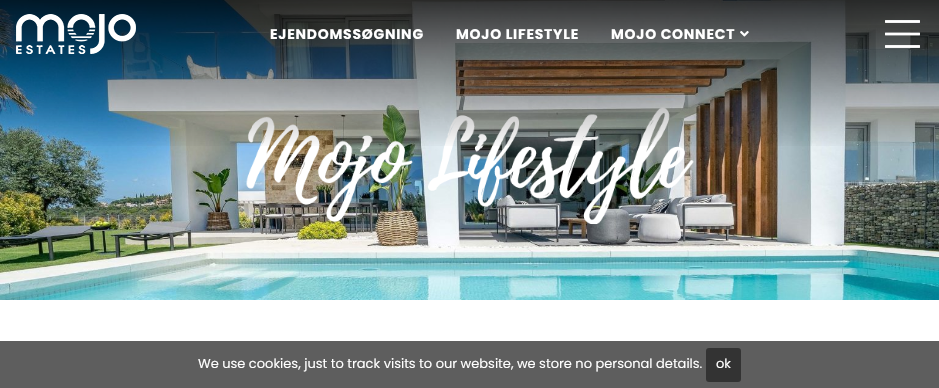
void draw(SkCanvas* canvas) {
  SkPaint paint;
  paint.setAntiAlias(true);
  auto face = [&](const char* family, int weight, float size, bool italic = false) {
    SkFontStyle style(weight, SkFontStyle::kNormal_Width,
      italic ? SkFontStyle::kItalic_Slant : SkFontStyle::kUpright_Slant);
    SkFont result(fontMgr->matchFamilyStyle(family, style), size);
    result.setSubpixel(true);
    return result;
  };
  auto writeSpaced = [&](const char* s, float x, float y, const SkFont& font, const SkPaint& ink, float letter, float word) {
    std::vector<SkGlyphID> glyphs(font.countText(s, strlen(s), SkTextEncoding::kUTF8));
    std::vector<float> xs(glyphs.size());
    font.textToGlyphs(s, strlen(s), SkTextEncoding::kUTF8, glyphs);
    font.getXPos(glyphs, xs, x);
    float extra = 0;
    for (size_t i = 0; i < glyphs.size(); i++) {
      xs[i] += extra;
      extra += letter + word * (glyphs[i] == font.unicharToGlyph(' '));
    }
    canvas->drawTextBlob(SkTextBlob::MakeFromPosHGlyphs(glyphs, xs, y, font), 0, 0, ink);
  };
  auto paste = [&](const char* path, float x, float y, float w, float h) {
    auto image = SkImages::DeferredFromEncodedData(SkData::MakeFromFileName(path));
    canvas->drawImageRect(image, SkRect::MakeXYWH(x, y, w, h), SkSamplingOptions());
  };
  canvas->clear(0xffffffff);
  paint.setColor(0xff5e5e5e);
  canvas->drawRect(SkRect::MakeXYWH(0, 341, 939, 47), paint);
  paste("img/1.png", 0, 0, 939, 300);
  paste("img/2.png", 246, 107, 448, 117);
  {
    const SkColor colors[] = {0xcc000000, 0x00000000};
    const float stops[] = {0, 1};
    const SkPoint ends[] = {{470, 0}, {470, 150}};
    paint.setShader(SkGradientShader::MakeLinear(ends, colors, stops, 2, SkTileMode::kClamp));
    paint.setAlpha(255);
  }
  canvas->drawRect(SkRect::MakeXYWH(0, 0, 939, 146), paint);
  paste("img/3.png", 16, 14, 120, 40);
  paste("img/4.png", 740, 31, 9, 6);
  paste("img/5.png", 885, 20, 35, 28);
  paint.setShader(nullptr);
  paint.setColor(0xff333333);
  canvas->drawRoundRect(SkRect::MakeXYWH(706, 348, 35, 34), 3, 3, paint);
  auto f0 = face("Poppins", 700, 14);
  paint.setColor(0xffffffff);
  {
    const struct { const char* s; float x, y; } items[] = {
      {"EJENDOMSSØGNING", 270, 39},
      {"MOJO LIFESTYLE", 456, 39},
      {"MOJO CONNECT", 611, 39},
    };
    for (auto [s, x, y] : items) {
      writeSpaced(s, x, y, f0, paint, 0.75f, 0);
    }
  }
  auto f1 = face("Poppins", 400, 13);
  canvas->drawString("We use cookies, just to track visits to our website, we store no personal details.", 198, 368, f1, paint);
  canvas->drawString("ok", 716, 368, f1, paint);
}
